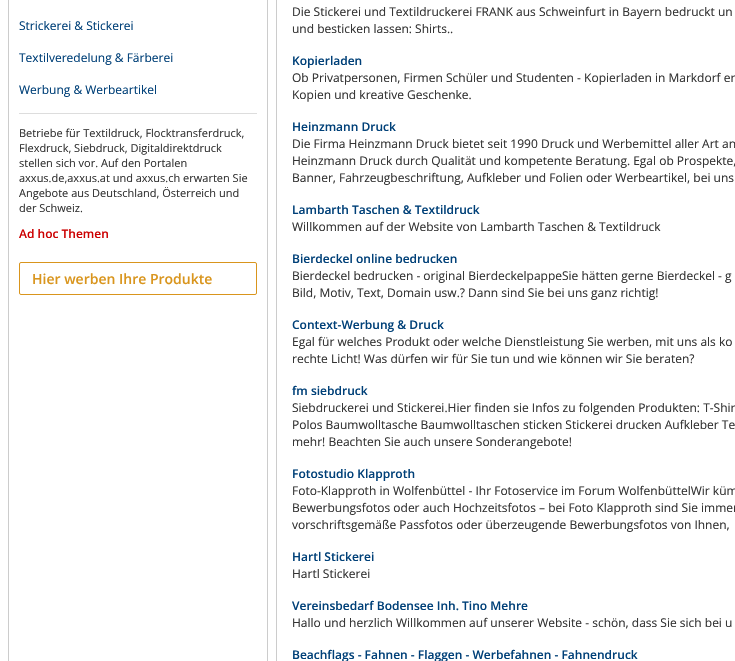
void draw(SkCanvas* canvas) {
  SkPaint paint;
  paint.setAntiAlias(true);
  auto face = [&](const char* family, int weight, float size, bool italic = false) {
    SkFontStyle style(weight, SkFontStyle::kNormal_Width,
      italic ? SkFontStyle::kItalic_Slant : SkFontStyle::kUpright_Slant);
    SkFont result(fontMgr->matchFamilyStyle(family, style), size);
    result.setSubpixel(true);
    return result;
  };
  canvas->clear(0xffffffff);
  paint.setStroke(true);
  paint.setStrokeWidth(1);
  paint.setColor(0xffcccccc);
  canvas->drawRect(SkRect::MakeXYWH(8.5f, -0.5f, 259, 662), paint);
  paint.setStroke(false);
  paint.setColor(0xffdddddd);
  canvas->drawRect(SkRect::MakeXYWH(19, 113, 238, 1), paint);
  paint.setStroke(true);
  paint.setColor(0xffd9951d);
  canvas->drawRoundRect(SkRect::MakeXYWH(19.5f, 262.5f, 237, 32), 1.5f, 1.5f, paint);
  paint.setColor(0xffcccccc);
  canvas->drawRect(SkRect::MakeXYWH(276.5f, -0.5f, 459, 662), paint);
  auto f0 = face("Open Sans", 400, 12);
  paint.setStroke(false);
  paint.setColor(0xff004078);
  {
    const struct { const char* s; float x, y; } items[] = {
      {"Strickerei & Stickerei", 19, 30},
      {"Textilveredelung & Färberei", 19, 62},
      {"Werbung & Werbeartikel", 19, 94},
    };
    for (auto [s, x, y] : items) {
      canvas->drawString(s, x, y, f0, paint);
    }
  }
  auto f1 = face("Open Sans", 400, 11);
  paint.setColor(0xff333333);
  {
    const struct { const char* s; float x, y; } items[] = {
      {"Betriebe für Textildruck, Flocktransferdruck,", 19, 137},
      {"Flexdruck, Siebdruck, Digitaldirektdruck", 19, 152},
      {"stellen sich vor. Auf den Portalen", 19, 167},
      {"axxus.de,axxus.at und axxus.ch erwarten Sie", 19, 182},
      {"Angebote aus Deutschland, Österreich und", 19, 197},
      {"der Schweiz.", 19, 212},
    };
    for (auto [s, x, y] : items) {
      canvas->drawString(s, x, y, f1, paint);
    }
  }
  auto f2 = face("Open Sans", 600, 12);
  paint.setColor(0xffcc0000);
  canvas->drawString("Ad hoc Themen", 19, 238, f2, paint);
  auto f3 = face("Open Sans", 600, 14);
  paint.setColor(0xffd9951d);
  canvas->drawString("Hier werben Ihre Produkte", 32, 284, f3, paint);
  paint.setColor(0xff333333);
  canvas->drawString("Die Stickerei und Textildruckerei FRANK aus Schweinfurt in Bayern bedruckt un", 292, 16, f0, paint);
  canvas->drawString("und besticken lassen: Shirts..", 292, 33, f0, paint);
  paint.setColor(0xff004078);
  canvas->drawString("Kopierladen", 292, 65, f2, paint);
  paint.setColor(0xff333333);
  canvas->drawString("Ob Privatpersonen, Firmen Schüler und Studenten - Kopierladen in Markdorf er", 292, 82, f0, paint);
  canvas->drawString("Kopien und kreative Geschenke.", 292, 99, f0, paint);
  paint.setColor(0xff004078);
  canvas->drawString("Heinzmann Druck", 292, 131, f2, paint);
  paint.setColor(0xff333333);
  {
    const struct { const char* s; float x, y; } items[] = {
      {"Die Firma Heinzmann Druck bietet seit 1990 Druck und Werbemittel aller Art an", 292, 148},
      {"Heinzmann Druck durch Qualität und kompetente Beratung. Egal ob Prospekte,", 292, 165},
      {"Banner, Fahrzeugbeschriftung, Aufkleber und Folien oder Werbeartikel, bei uns", 292, 182},
    };
    for (auto [s, x, y] : items) {
      canvas->drawString(s, x, y, f0, paint);
    }
  }
  paint.setColor(0xff004078);
  canvas->drawString("Lambarth Taschen & Textildruck", 292, 214, f2, paint);
  paint.setColor(0xff333333);
  canvas->drawString("Willkommen auf der Website von Lambarth Taschen & Textildruck", 292, 231, f0, paint);
  paint.setColor(0xff004078);
  canvas->drawString("Bierdeckel online bedrucken", 292, 263, f2, paint);
  paint.setColor(0xff333333);
  canvas->drawString("Bierdeckel bedrucken - original BierdeckelpappeSie hätten gerne Bierdeckel - g", 292, 280, f0, paint);
  canvas->drawString("Bild, Motiv, Text, Domain usw.? Dann sind Sie bei uns ganz richtig!", 292, 297, f0, paint);
  paint.setColor(0xff004078);
  canvas->drawString("Context-Werbung & Druck", 292, 329, f2, paint);
  paint.setColor(0xff333333);
  canvas->drawString("Egal für welches Produkt oder welche Dienstleistung Sie werben, mit uns als ko", 292, 346, f0, paint);
  canvas->drawString("rechte Licht! Was dürfen wir für Sie tun und wie können wir Sie beraten?", 292, 363, f0, paint);
  paint.setColor(0xff004078);
  canvas->drawString("fm siebdruck", 292, 395, f2, paint);
  paint.setColor(0xff333333);
  {
    const struct { const char* s; float x, y; } items[] = {
      {"Siebdruckerei und Stickerei.Hier finden sie Infos zu folgenden Produkten: T-Shir", 292, 412},
      {"Polos Baumwolltasche Baumwolltaschen sticken Stickerei drucken Aufkleber Te", 292, 429},
      {"mehr! Beachten Sie auch unsere Sonderangebote!", 292, 446},
    };
    for (auto [s, x, y] : items) {
      canvas->drawString(s, x, y, f0, paint);
    }
  }
  paint.setColor(0xff004078);
  canvas->drawString("Fotostudio Klapproth", 292, 478, f2, paint);
  paint.setColor(0xff333333);
  {
    const struct { const char* s; float x, y; } items[] = {
      {"Foto-Klapproth in Wolfenbüttel - Ihr Fotoservice im Forum WolfenbüttelWir küm", 292, 495},
      {"Bewerbungsfotos oder auch Hochzeitsfotos – bei Foto Klapproth sind Sie immer", 292, 512},
      {"vorschriftsgemäße Passfotos oder überzeugende Bewerbungsfotos von Ihnen,", 292, 529},
    };
    for (auto [s, x, y] : items) {
      canvas->drawString(s, x, y, f0, paint);
    }
  }
  paint.setColor(0xff004078);
  canvas->drawString("Hartl Stickerei", 292, 561, f2, paint);
  paint.setColor(0xff333333);
  canvas->drawString("Hartl Stickerei", 292, 578, f0, paint);
  paint.setColor(0xff004078);
  canvas->drawString("Vereinsbedarf Bodensee Inh. Tino Mehre", 292, 610, f2, paint);
  paint.setColor(0xff333333);
  canvas->drawString("Hallo und herzlich Willkommen auf unserer Website - schön, dass Sie sich bei u", 292, 627, f0, paint);
  paint.setColor(0xff004078);
  canvas->drawString("Beachflags - Fahnen - Flaggen - Werbefahnen - Fahnendruck", 292, 659, f2, paint);
}
